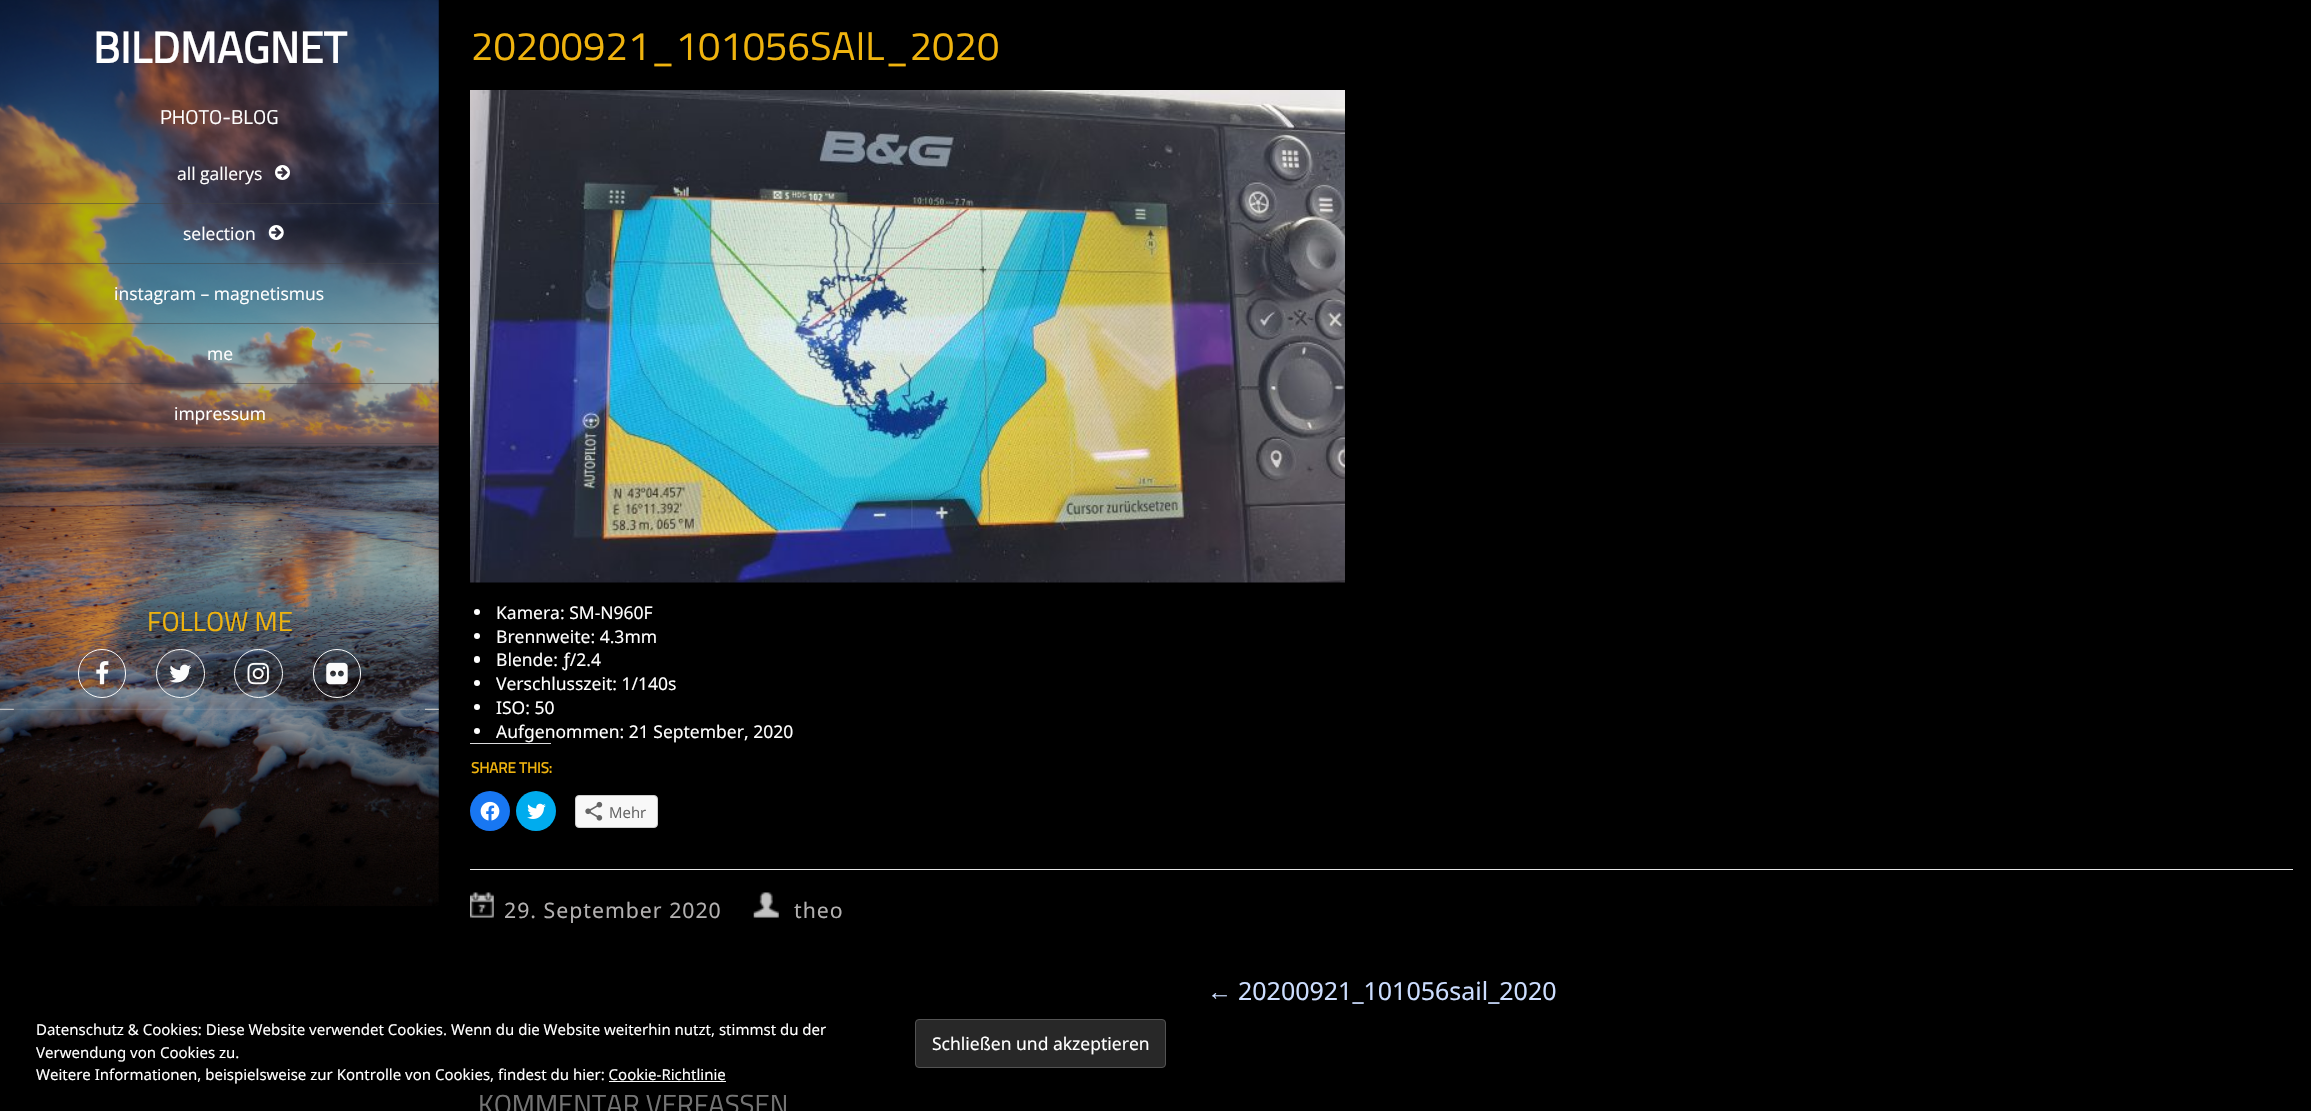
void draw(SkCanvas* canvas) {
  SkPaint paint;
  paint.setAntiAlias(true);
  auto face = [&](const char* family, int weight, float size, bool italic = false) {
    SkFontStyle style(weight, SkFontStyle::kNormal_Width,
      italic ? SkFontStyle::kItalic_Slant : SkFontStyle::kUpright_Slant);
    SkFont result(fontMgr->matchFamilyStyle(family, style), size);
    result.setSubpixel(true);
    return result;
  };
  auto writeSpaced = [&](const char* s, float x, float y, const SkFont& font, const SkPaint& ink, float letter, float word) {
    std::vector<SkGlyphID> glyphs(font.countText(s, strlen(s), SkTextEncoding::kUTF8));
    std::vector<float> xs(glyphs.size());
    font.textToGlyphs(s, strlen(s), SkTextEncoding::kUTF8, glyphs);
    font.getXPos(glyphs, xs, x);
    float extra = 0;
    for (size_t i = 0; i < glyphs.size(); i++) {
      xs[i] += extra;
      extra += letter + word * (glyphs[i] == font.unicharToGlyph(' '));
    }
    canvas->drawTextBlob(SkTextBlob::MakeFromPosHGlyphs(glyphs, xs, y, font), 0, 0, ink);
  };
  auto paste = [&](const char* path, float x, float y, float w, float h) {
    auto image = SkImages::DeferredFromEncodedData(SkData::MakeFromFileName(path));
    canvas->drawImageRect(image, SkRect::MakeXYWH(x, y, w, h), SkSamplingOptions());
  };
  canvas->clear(0xff000000);
  paste("img/1.png", 0, 0, 439, 906);
  paint.setColor(0x4d000000);
  canvas->drawRect(SkRect::MakeXYWH(0, 0, 439, 475), paint);
  paint.setColor(0x80414141);
  canvas->drawRect(SkRect::MakeXYWH(0, 203, 439, 1), paint);
  paste("img/2.png", 275, 165, 15, 15);
  canvas->drawRect(SkRect::MakeXYWH(0, 263, 439, 1), paint);
  paste("img/3.png", 268, 225, 16, 15);
  {
    const struct { float x, y, w, h; SkColor color; } items[] = {
      {0, 323, 439, 1, 0x80414141},
      {0, 383, 439, 1, 0x80414141},
      {0, 443, 439, 1, 0x80414141},
    };
    for (auto [x, y, w, h, color] : items) {
      paint.setColor(color);
      canvas->drawRect(SkRect::MakeXYWH(x, y, w, h), paint);
    }
  }
  {
    const SkColor colors[] = {0x4d000000, 0x03000000};
    const float stops[] = {0, 1};
    const SkPoint ends[] = {{219, 475}, {219, 710}};
    paint.setShader(SkGradientShader::MakeLinear(ends, colors, stops, 2, SkTileMode::kClamp));
    paint.setAlpha(255);
  }
  canvas->drawRect(SkRect::MakeXYWH(0, 475, 439, 226), paint);
  paint.setStroke(true);
  paint.setStrokeWidth(1);
  paint.setShader(nullptr);
  paint.setColor(0xfffbfbfb);
  canvas->drawRoundRect(SkRect::MakeXYWH(78.5f, 649.5f, 47, 48), 23.5f, 23.5f, paint);
  paste("img/4.png", 96, 661, 13, 24);
  canvas->drawCircle(180.5f, 673.5f, 24, paint);
  paste("img/5.png", 169, 664, 23, 19);
  canvas->drawCircle(258.5f, 673.5f, 24, paint);
  paste("img/6.png", 247, 662, 22, 23);
  canvas->drawRoundRect(SkRect::MakeXYWH(313.5f, 649.5f, 47, 48), 23.5f, 23.5f, paint);
  paste("img/7.png", 326, 662, 22, 23);
  paste("img/8.png", 0, 708, 439, 2);
  paste("img/9.png", 470, 90, 875, 493);
  paint.setStroke(false);
  paint.setColor(0xffffffff);
  canvas->drawCircle(477, 612, 3, paint);
  canvas->drawCircle(477, 636, 3, paint);
  canvas->drawRoundRect(SkRect::MakeXYWH(474, 656, 6, 7), 3, 3, paint);
  canvas->drawCircle(477, 683, 3, paint);
  canvas->drawCircle(477, 707, 3, paint);
  canvas->drawCircle(477, 731, 3, paint);
  paint.setColor(0xffdcdcde);
  canvas->drawRect(SkRect::MakeXYWH(470, 743, 81, 1), paint);
  paint.setColor(0xff1877f2);
  canvas->drawCircle(490, 811, 20, paint);
  paste("img/10.png", 480, 801, 20, 20);
  paint.setColor(0xff00acee);
  canvas->drawCircle(536, 811, 20, paint);
  paste("img/11.png", 527, 803, 19, 16);
  paint.setColor(0xfff8f8f8);
  canvas->drawRoundRect(SkRect::MakeXYWH(575.5f, 795.5f, 82, 32), 3.5f, 3.5f, paint);
  paint.setStroke(true);
  paint.setColor(0xffcccccc);
  canvas->drawRoundRect(SkRect::MakeXYWH(575.5f, 795.5f, 82, 32), 3.5f, 3.5f, paint);
  paste("img/12.png", 585, 801, 18, 20);
  paint.setStroke(false);
  paint.setColor(0xffe7e7e7);
  canvas->drawRect(SkRect::MakeXYWH(470, 869, 1823, 1), paint);
  paste("img/13.png", 470, 892, 24, 26);
  paste("img/14.png", 753, 892, 26, 26);
  paint.setColor(0xff282828);
  canvas->drawRoundRect(SkRect::MakeXYWH(915.5f, 1019.5f, 250, 48), 3.5f, 3.5f, paint);
  paint.setStroke(true);
  paint.setColor(0xff535353);
  canvas->drawRoundRect(SkRect::MakeXYWH(915.5f, 1019.5f, 250, 48), 3.5f, 3.5f, paint);
  paint.setStroke(false);
  paint.setColor(0xffffffff);
  canvas->drawRect(SkRect::MakeXYWH(609, 1081, 117, 1), paint);
  auto f0 = face("Titillium Web", 700, 43.75f);
  canvas->drawString("BILDMAGNET", 93, 63, f0, paint);
  auto f1 = face("Titillium Web", 400, 20);
  canvas->drawString("PHOTO-BLOG", 160, 124, f1, paint);
  auto f2 = face("Open Sans", 400, 17.5f);
  {
    const struct { const char* s; float x, y; } items[] = {
      {"all gallerys", 177, 180},
      {"selection", 183, 240},
      {"instagram – magnetismus", 114, 300},
      {"me", 207, 360},
      {"impressum", 174, 420},
    };
    for (auto [s, x, y] : items) {
      canvas->drawString(s, x, y, f2, paint);
    }
  }
  auto f3 = face("Titillium Web", 400, 27.5f);
  paint.setColor(0xffefb30e);
  canvas->drawString("FOLLOW ME", 147, 631, f3, paint);
  auto f4 = face("Titillium Web", 400, 40);
  canvas->drawString("20200921_101056SAIL_2020", 471, 60, f4, paint);
  auto f5 = face("Noto Sans", 400, 17.5f);
  paint.setColor(0xffffffff);
  {
    const struct { const char* s; float x, y; } items[] = {
      {"Kamera: SM-N960F", 496, 619},
      {"Brennweite: 4.3mm", 496, 643},
      {"Blende: ƒ/2.4", 496, 666},
      {"Verschlusszeit: 1/140s", 496, 690},
      {"ISO: 50", 496, 714},
      {"Aufgenommen: 21 September, 2020", 496, 738},
    };
    for (auto [s, x, y] : items) {
      canvas->drawString(s, x, y, f5, paint);
    }
  }
  auto f6 = face("Titillium Web", 700, 15);
  paint.setColor(0xffefb30e);
  canvas->drawString("SHARE THIS:", 471, 773, f6, paint);
  auto f7 = face("Open Sans", 400, 15);
  paint.setColor(0xff656565);
  canvas->drawString("Mehr", 609, 818, f7, paint);
  auto f8 = face("Noto Sans", 400, 21.25f);
  paint.setColor(0xffb2b0b0);
  writeSpaced("29. September 2020", 504, 918, f8, paint, 1, 0);
  writeSpaced("theo", 794, 918, f8, paint, 1, 0);
  auto f9 = face("Liberation Sans", 400, 25);
  paint.setColor(0xffccddff);
  canvas->drawString("←", 1207, 1000, f9, paint);
  auto f10 = face("Noto Sans", 400, 25);
  canvas->drawString("20200921_101056sail_2020", 1238, 1000, f10, paint);
  paint.setColor(0xff747474);
  canvas->drawString("KOMMENTAR VERFASSEN", 478, 1114, f3, paint);
  auto f11 = face("Noto Sans", 400, 15);
  paint.setColor(0xffffffff);
  canvas->drawString("Datenschutz & Cookies: Diese Website verwendet Cookies. Wenn du die Website weiterhin nutzt, stimmst du der", 36, 1035, f11, paint);
  canvas->drawString("Verwendung von Cookies zu.", 36, 1058, f11, paint);
  canvas->drawString("Schließen und akzeptieren", 932, 1050, f5, paint);
  canvas->drawString("Weitere Informationen, beispielsweise zur Kontrolle von Cookies, findest du hier: Cookie-Richtlinie", 36, 1080, f11, paint);
}
